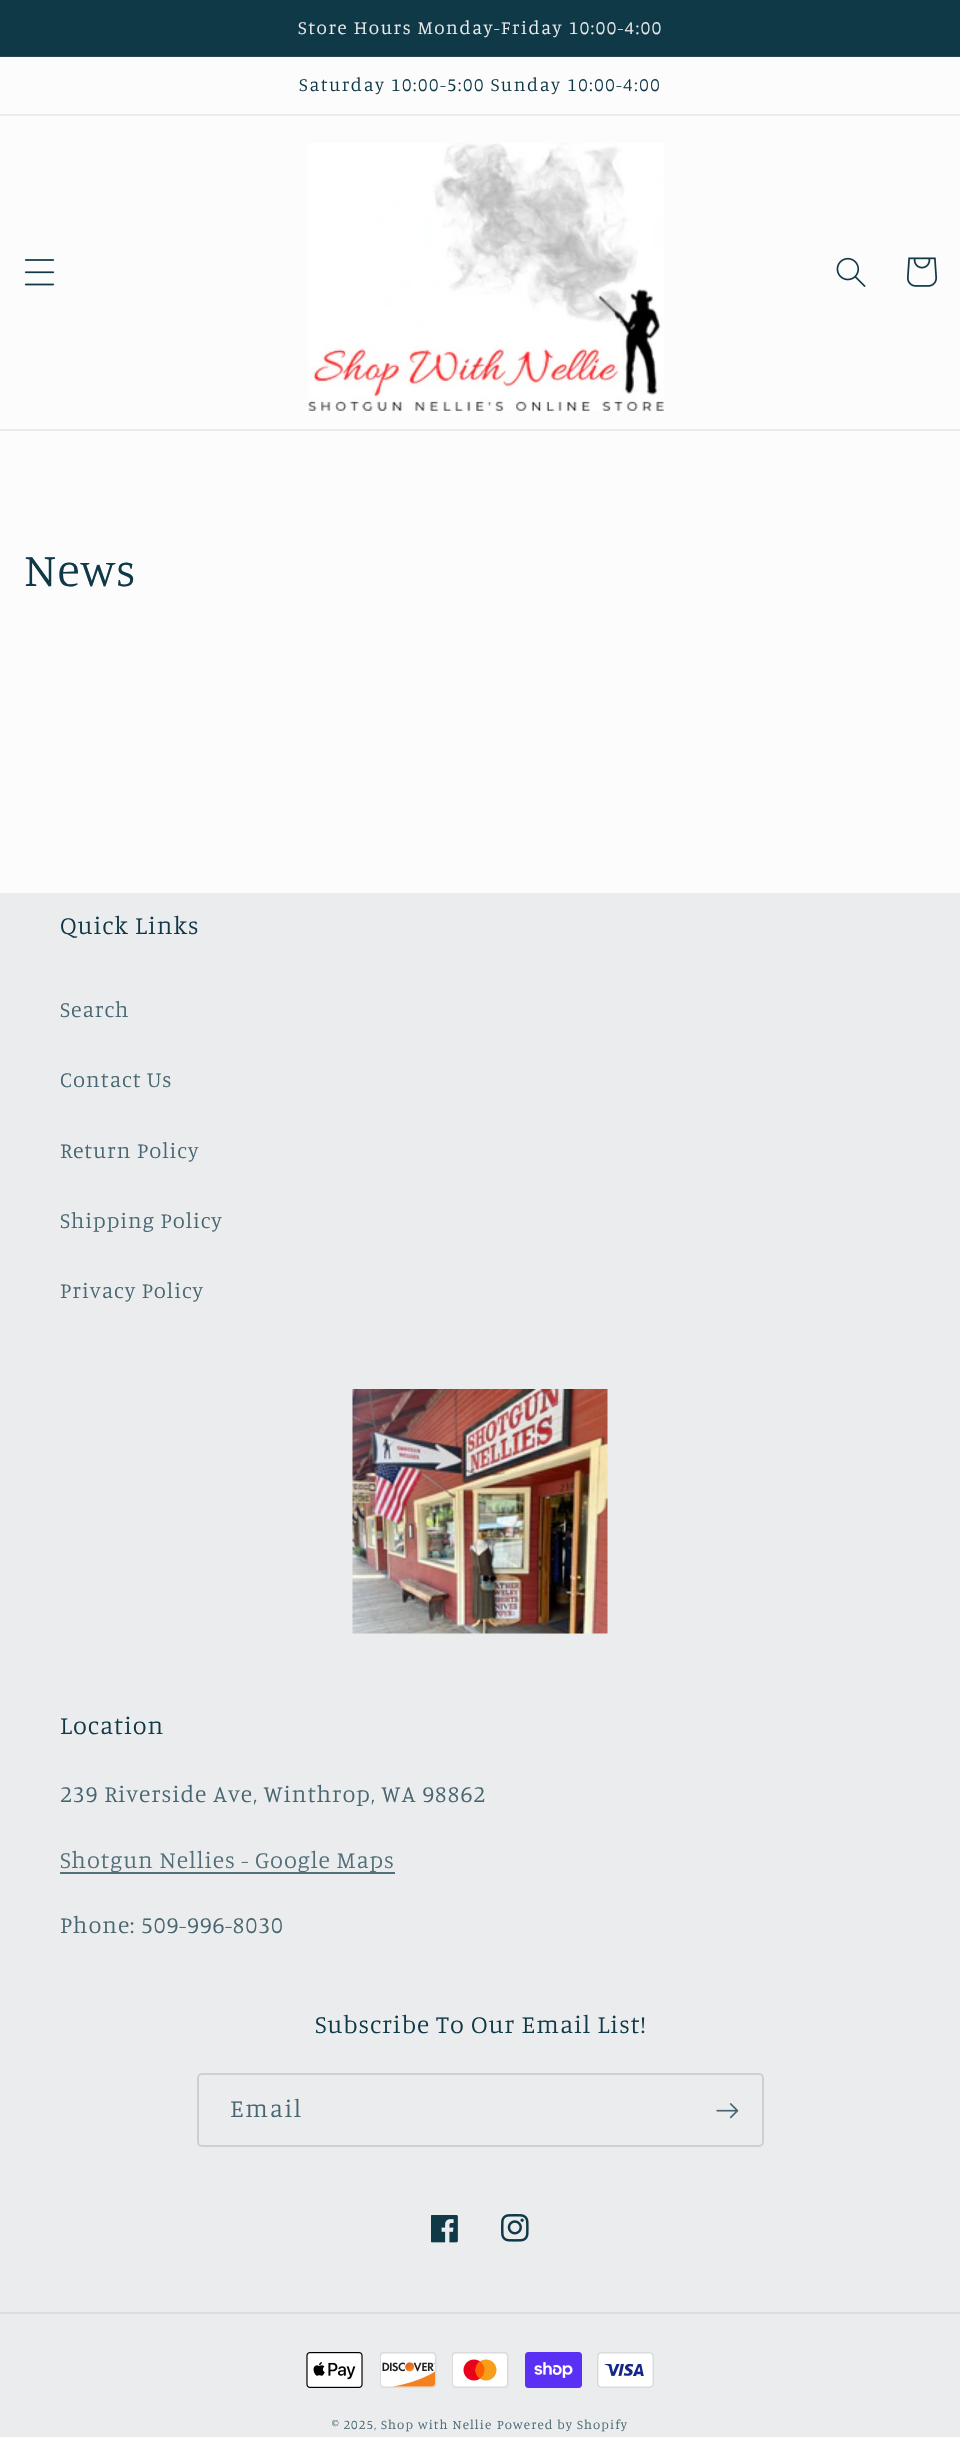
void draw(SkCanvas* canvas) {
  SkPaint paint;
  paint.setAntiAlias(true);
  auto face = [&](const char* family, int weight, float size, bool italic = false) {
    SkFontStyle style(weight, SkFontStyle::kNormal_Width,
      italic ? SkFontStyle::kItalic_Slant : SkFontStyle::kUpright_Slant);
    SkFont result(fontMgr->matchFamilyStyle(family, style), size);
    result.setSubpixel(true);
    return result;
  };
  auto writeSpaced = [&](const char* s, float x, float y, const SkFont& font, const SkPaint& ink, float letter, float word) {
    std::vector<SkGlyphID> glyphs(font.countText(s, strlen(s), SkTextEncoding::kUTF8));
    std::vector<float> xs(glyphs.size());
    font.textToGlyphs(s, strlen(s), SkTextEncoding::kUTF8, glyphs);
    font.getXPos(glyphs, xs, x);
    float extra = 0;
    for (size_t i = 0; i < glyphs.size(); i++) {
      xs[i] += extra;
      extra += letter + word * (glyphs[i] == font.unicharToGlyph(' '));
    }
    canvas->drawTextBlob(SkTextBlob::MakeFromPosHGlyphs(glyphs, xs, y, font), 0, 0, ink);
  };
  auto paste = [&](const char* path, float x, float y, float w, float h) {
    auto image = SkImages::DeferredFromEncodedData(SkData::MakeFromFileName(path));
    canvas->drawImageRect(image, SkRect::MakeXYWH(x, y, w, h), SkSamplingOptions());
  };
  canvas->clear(0xfffcfcfc);
  {
    const struct { float x, y, w, h; SkColor color; } items[] = {
      {0, 0, 960, 56, 0xff103948},
      {0, 56, 960, 1, 0xff224755},
      {0, 114, 960, 2, 0xffe9ecee},
      {0, 429, 960, 2, 0xffe9ecee},
    };
    for (auto [x, y, w, h, color] : items) {
      paint.setColor(color);
      canvas->drawRect(SkRect::MakeXYWH(x, y, w, h), paint);
    }
  }
  paste("img/1.png", 24, 259, 31, 27);
  paste("img/2.png", 308, 143, 356, 268);
  paste("img/3.png", 836, 257, 30, 30);
  paste("img/4.png", 907, 257, 31, 30);
  paint.setColor(0xffebeced);
  canvas->drawRect(SkRect::MakeXYWH(0, 893, 960, 1544), paint);
  paste("img/5.png", 352, 1389, 256, 245);
  paint.setColor(0xff526f7a);
  canvas->drawRect(SkRect::MakeXYWH(60, 1872, 335, 2), paint);
  paint.setStroke(true);
  paint.setStrokeWidth(2);
  paint.setColor(0x26103948);
  canvas->drawRoundRect(SkRect::MakeXYWH(198, 2074, 565, 72), 4, 4, paint);
  paste("img/6.png", 716, 2103, 23, 16);
  paste("img/7.png", 431, 2215, 27, 28);
  paste("img/8.png", 501, 2214, 28, 28);
  paint.setStroke(false);
  paint.setColor(0xffd9dee0);
  canvas->drawRect(SkRect::MakeXYWH(0, 2312, 960, 2), paint);
  paste("img/9.png", 306, 2352, 57, 36);
  paste("img/10.png", 380, 2352, 57, 36);
  paste("img/11.png", 452, 2352, 57, 36);
  paste("img/12.png", 525, 2352, 57, 36);
  paste("img/13.png", 597, 2352, 57, 36);
  auto f0 = face("Manuale", 300, 18.9f);
  paint.setColor(0xffebeced);
  writeSpaced("Store Hours Monday-Friday 10:00-4:00", 298, 34, f0, paint, 1.6f, 0);
  paint.setColor(0xff103948);
  writeSpaced("Saturday 10:00-5:00 Sunday 10:00-4:00", 299, 91, f0, paint, 1.6f, 0);
  auto f1 = face("Manuale", 300, 47);
  writeSpaced("News", 24, 586, f1, paint, 0.95f, 0);
  auto f2 = face("Manuale", 300, 25.25f);
  writeSpaced("Quick Links", 60, 934, f2, paint, 0.95f, 0);
  auto f3 = face("Manuale", 300, 22);
  paint.setColor(0xff476671);
  {
    const struct { const char* s; float x, y; } items[] = {
      {"Search", 60, 1017},
      {"Contact Us", 60, 1087},
      {"Return Policy", 60, 1158},
      {"Shipping Policy", 60, 1228},
      {"Privacy Policy", 60, 1298},
    };
    for (auto [s, x, y] : items) {
      writeSpaced(s, x, y, f3, paint, 0.95f, 0);
    }
  }
  paint.setColor(0xff103948);
  writeSpaced("Location", 60, 1734, f2, paint, 0.95f, 0);
  auto f4 = face("Manuale", 300, 23.6f);
  paint.setColor(0xff476671);
  writeSpaced("239 Riverside Ave, Winthrop, WA 98862", 60, 1802, f4, paint, 0.95f, 0);
  paint.setColor(0xff526f79);
  writeSpaced("Shotgun Nellies - Google Maps", 60, 1868, f4, paint, 0.95f, 0);
  paint.setColor(0xff476671);
  writeSpaced("Phone: 509-996-8030", 60, 1933, f4, paint, 0.95f, 0);
  paint.setColor(0xff103948);
  writeSpaced("Subscribe To Our Email List!", 315, 2033, f2, paint, 0.95f, 0);
  paint.setColor(0xff476671);
  writeSpaced("Email", 230, 2117, f2, paint, 1.6f, 0);
  auto f5 = face("Manuale", 300, 13.1f);
  writeSpaced("© 2025, Shop with Nellie", 332, 2429, f5, paint, 1.1f, 0);
  writeSpaced("Powered by Shopify", 497, 2429, f5, paint, 1.1f, 0);
}
